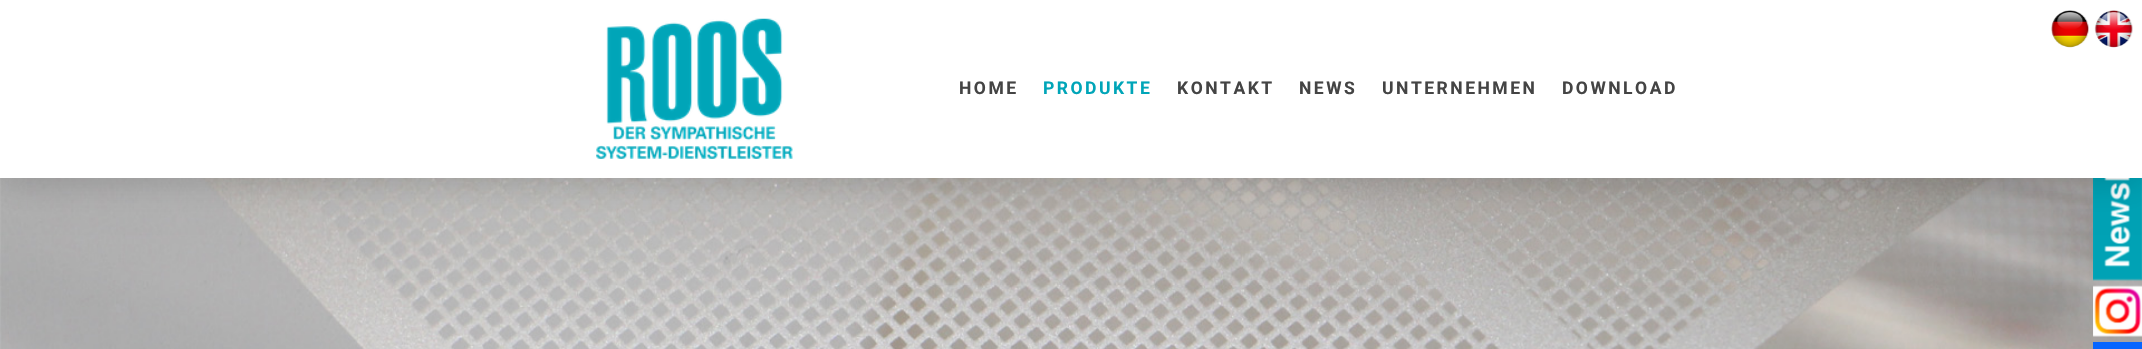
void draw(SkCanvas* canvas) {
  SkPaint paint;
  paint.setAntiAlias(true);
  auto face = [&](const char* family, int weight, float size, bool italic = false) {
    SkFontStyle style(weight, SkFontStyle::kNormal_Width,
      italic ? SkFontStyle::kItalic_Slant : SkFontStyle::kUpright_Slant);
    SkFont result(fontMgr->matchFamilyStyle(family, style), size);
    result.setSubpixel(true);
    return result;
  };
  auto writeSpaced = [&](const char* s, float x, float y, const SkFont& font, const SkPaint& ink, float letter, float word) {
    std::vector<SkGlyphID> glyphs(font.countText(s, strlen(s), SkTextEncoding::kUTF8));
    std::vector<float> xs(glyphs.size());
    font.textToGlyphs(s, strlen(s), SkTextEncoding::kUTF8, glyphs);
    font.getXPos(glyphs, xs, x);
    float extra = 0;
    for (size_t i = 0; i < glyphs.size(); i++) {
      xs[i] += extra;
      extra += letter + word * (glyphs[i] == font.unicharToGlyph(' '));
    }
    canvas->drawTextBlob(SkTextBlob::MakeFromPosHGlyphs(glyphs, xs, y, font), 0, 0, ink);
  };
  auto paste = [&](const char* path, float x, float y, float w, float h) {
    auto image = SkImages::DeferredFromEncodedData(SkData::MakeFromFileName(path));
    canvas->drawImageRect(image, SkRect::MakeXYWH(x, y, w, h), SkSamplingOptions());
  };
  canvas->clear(0xffffffff);
  paste("img/4.png", 0, 178, 2142, 171);
  paste("img/5.png", 2093, 178, 49, 103);
  paint.setColor(0x33000000);
  paint.setMaskFilter(SkMaskFilter::MakeBlur(kNormal_SkBlurStyle, 19));
  canvas->drawRect(SkRect::MakeXYWH(0, 0, 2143, 178), paint);
  paint.setMaskFilter(nullptr);
  paint.setColor(0xffffffff);
  canvas->drawRect(SkRect::MakeXYWH(0, 0, 2142, 178), paint);
  paste("img/1.png", 2051, 10, 38, 38);
  paste("img/2.png", 2094, 10, 39, 38);
  paste("img/3.png", 596, 18, 197, 141);
  paste("img/6.png", 2093, 285, 49, 52);
  paint.setColor(0xff0665ff);
  canvas->drawRect(SkRect::MakeXYWH(2093, 342, 49, 7), paint);
  auto f0 = face("Roboto", 700, 17.5f);
  paint.setColor(0xff444444);
  writeSpaced("HOME", 959, 94, f0, paint, 2.5f, 0);
  paint.setColor(0xff00a5b8);
  writeSpaced("PRODUKTE", 1043, 94, f0, paint, 2.5f, 0);
  paint.setColor(0xff444444);
  {
    const struct { const char* s; float x, y; } items[] = {
      {"KONTAKT", 1177, 94},
      {"NEWS", 1299, 94},
      {"UNTERNEHMEN", 1382, 94},
      {"DOWNLOAD", 1562, 94},
    };
    for (auto [s, x, y] : items) {
      writeSpaced(s, x, y, f0, paint, 2.5f, 0);
    }
  }
}
